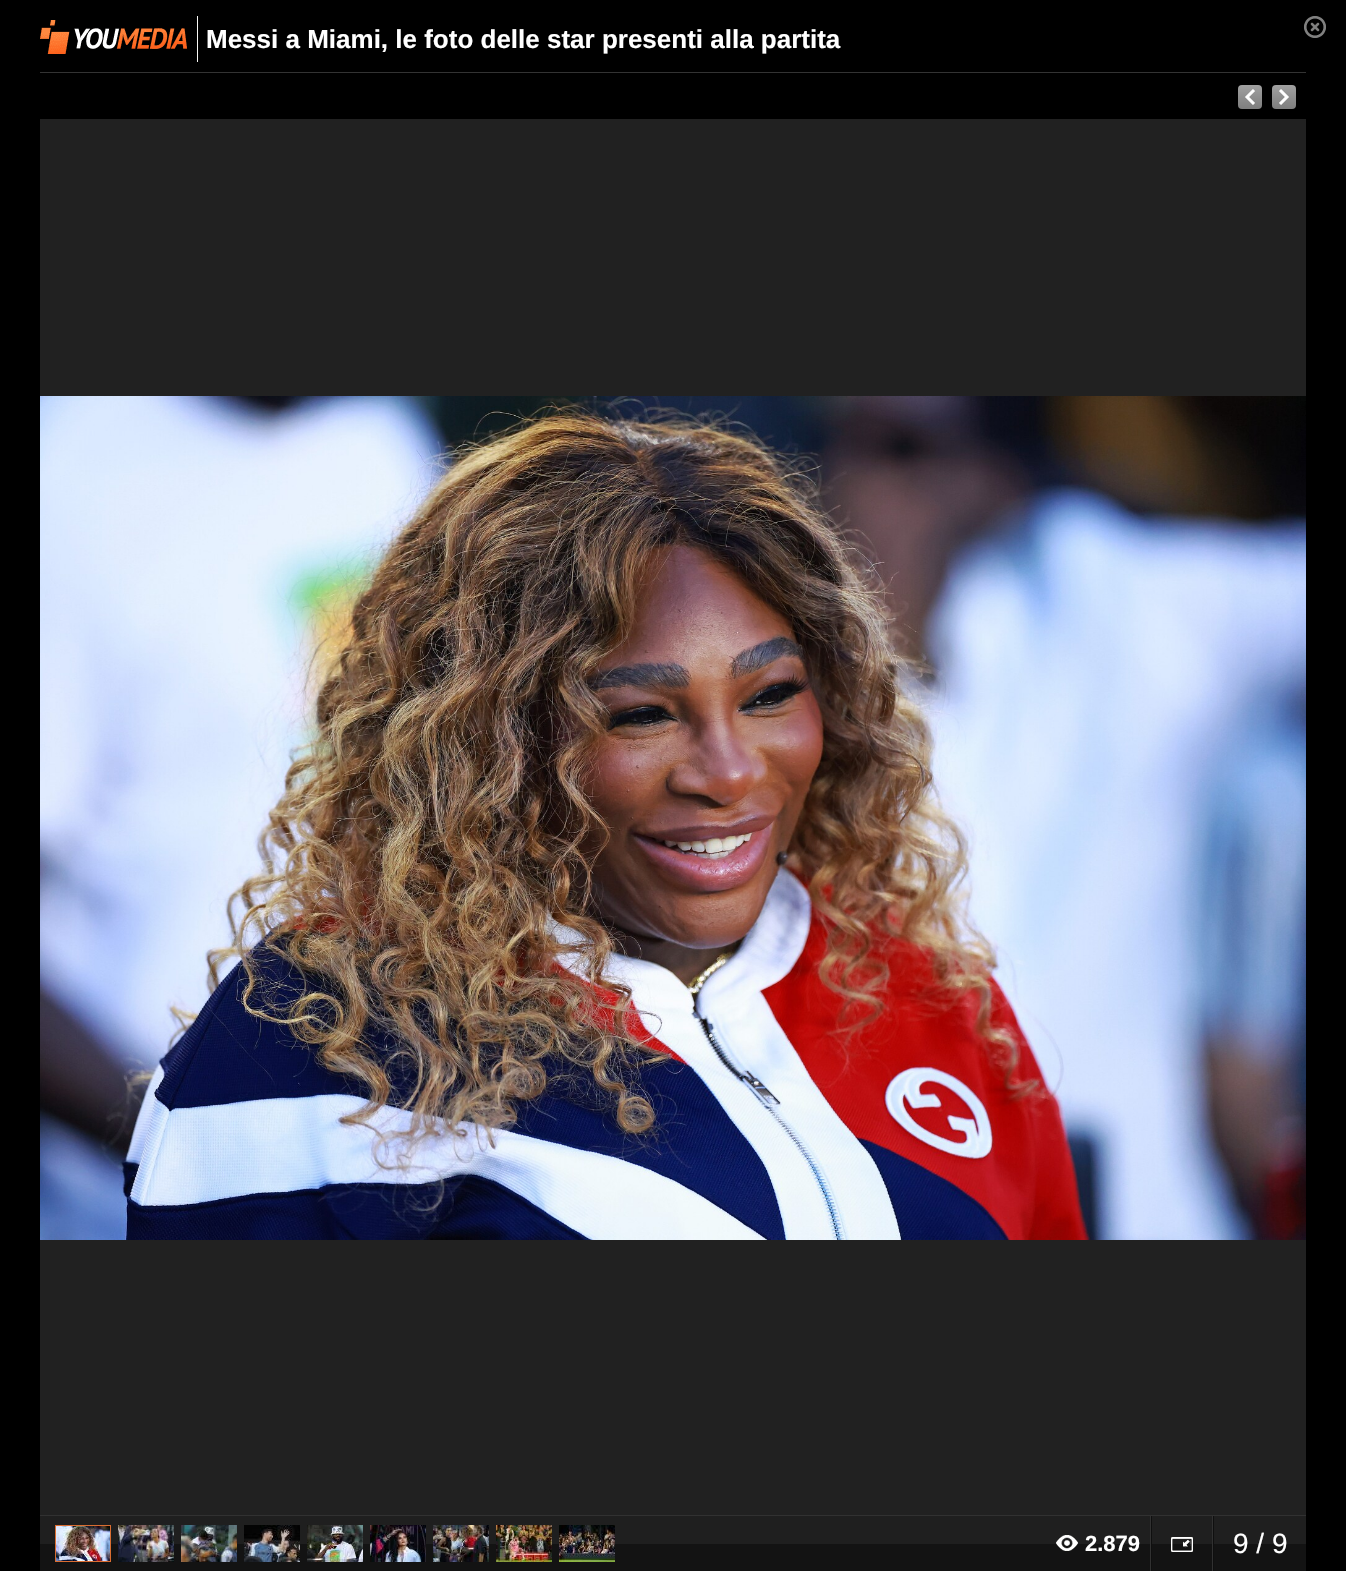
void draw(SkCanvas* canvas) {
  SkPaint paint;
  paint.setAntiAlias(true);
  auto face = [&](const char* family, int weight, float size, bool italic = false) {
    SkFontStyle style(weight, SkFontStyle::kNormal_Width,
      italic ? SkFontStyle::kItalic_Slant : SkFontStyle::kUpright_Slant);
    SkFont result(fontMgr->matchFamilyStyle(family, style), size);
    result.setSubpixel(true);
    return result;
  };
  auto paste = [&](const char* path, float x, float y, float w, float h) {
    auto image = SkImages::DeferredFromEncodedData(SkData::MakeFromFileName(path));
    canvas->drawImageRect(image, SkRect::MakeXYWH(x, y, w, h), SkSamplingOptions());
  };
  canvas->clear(0xff000000);
  paint.setColor(0xff333333);
  canvas->drawRect(SkRect::MakeXYWH(40, 72, 1266, 1), paint);
  paste("img/1.png", 40, 20, 147, 34);
  paint.setColor(0xfff7f7f5);
  canvas->drawRect(SkRect::MakeXYWH(197, 16, 1, 46), paint);
  paste("img/2.png", 1304, 16, 22, 22);
  {
    const SkColor colors[] = {0xffa1a1a1, 0xff7e7e7e};
    const float stops[] = {0, 1};
    const SkPoint ends[] = {{1250, 85}, {1250, 109}};
    paint.setShader(SkGradientShader::MakeLinear(ends, colors, stops, 2, SkTileMode::kClamp));
    paint.setAlpha(255);
  }
  canvas->drawRoundRect(SkRect::MakeXYWH(1238, 85, 24, 24), 4, 4, paint);
  paste("img/3.png", 1245, 89, 10, 16);
  {
    const SkColor colors[] = {0xffa1a1a1, 0xff7e7e7e};
    const float stops[] = {0, 1};
    const SkPoint ends[] = {{1284, 85}, {1284, 109}};
    paint.setShader(SkGradientShader::MakeLinear(ends, colors, stops, 2, SkTileMode::kClamp));
    paint.setAlpha(255);
  }
  canvas->drawRoundRect(SkRect::MakeXYWH(1272, 85, 24, 24), 4, 4, paint);
  paste("img/4.png", 1279, 89, 10, 16);
  paint.setShader(nullptr);
  paint.setColor(0xff212121);
  canvas->drawRect(SkRect::MakeXYWH(40, 119, 1266, 1396), paint);
  paste("img/5.png", 40, 396, 1266, 844);
  {
    const struct { float x, y, w, h; SkColor color; } items[] = {
      {40, 1544, 1266, 27, 0xff131313},
      {40, 1516, 1266, 28, 0xff1f1f1f},
      {40, 1515, 1266, 1, 0xff313131},
    };
    for (auto [x, y, w, h, color] : items) {
      paint.setColor(color);
      canvas->drawRect(SkRect::MakeXYWH(x, y, w, h), paint);
    }
  }
  paint.setStroke(true);
  paint.setStrokeWidth(1);
  paint.setColor(0xffda6d31);
  canvas->drawRect(SkRect::MakeXYWH(55.5f, 1525.5f, 55, 36), paint);
  paste("img/6.png", 56, 1526, 54, 35);
  paste("img/7.png", 118, 1525, 56, 37);
  paste("img/8.png", 181, 1525, 56, 37);
  paste("img/9.png", 244, 1525, 56, 37);
  paste("img/10.png", 307, 1525, 56, 37);
  paste("img/11.png", 370, 1525, 56, 37);
  paste("img/12.png", 433, 1525, 56, 37);
  paste("img/13.png", 496, 1525, 56, 37);
  paste("img/14.png", 559, 1525, 56, 37);
  paint.setStroke(false);
  paint.setColor(0xff313131);
  canvas->drawRect(SkRect::MakeXYWH(1150, 1516, 1, 55), paint);
  paste("img/15.png", 1056, 1535, 22, 16);
  canvas->drawRect(SkRect::MakeXYWH(1212, 1516, 1, 55), paint);
  paint.setColor(0xff0f0f0f);
  canvas->drawRect(SkRect::MakeXYWH(1151, 1516, 1, 55), paint);
  paste("img/16.png", 1171, 1537, 22, 15);
  canvas->drawRect(SkRect::MakeXYWH(1213, 1516, 1, 55), paint);
  auto f0 = face("Liberation Sans", 700, 26);
  paint.setColor(0xffffffff);
  canvas->drawString("Messi a Miami, le foto delle star presenti alla partita", 206, 48, f0, paint);
  auto f1 = face("Liberation Sans", 700, 22);
  canvas->drawString("2.879", 1085, 1551, f1, paint);
  auto f2 = face("Liberation Sans", 400, 28);
  canvas->drawString("9 / 9", 1233, 1553, f2, paint);
}
